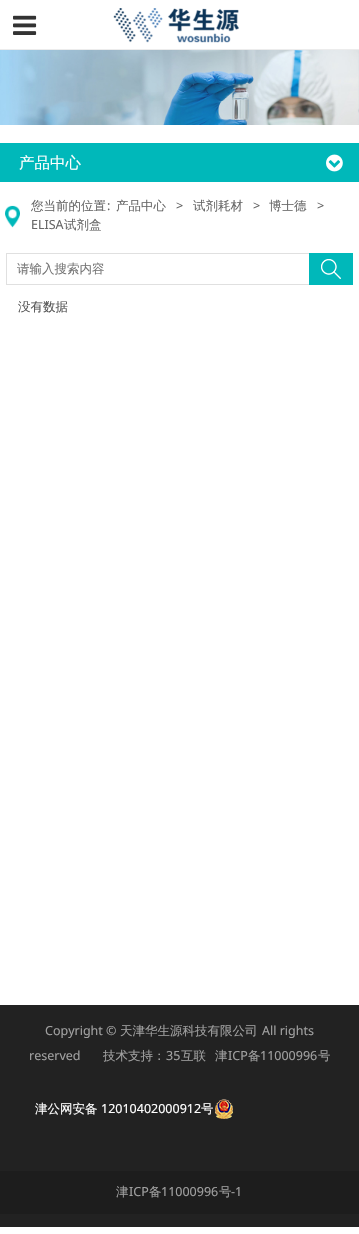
void draw(SkCanvas* canvas) {
  SkPaint paint;
  paint.setAntiAlias(true);
  auto face = [&](const char* family, int weight, float size, bool italic = false) {
    SkFontStyle style(weight, SkFontStyle::kNormal_Width,
      italic ? SkFontStyle::kItalic_Slant : SkFontStyle::kUpright_Slant);
    SkFont result(fontMgr->matchFamilyStyle(family, style), size);
    result.setSubpixel(true);
    return result;
  };
  auto paste = [&](const char* path, float x, float y, float w, float h) {
    auto image = SkImages::DeferredFromEncodedData(SkData::MakeFromFileName(path));
    canvas->drawImageRect(image, SkRect::MakeXYWH(x, y, w, h), SkSamplingOptions());
  };
  canvas->clear(0xffffffff);
  paint.setColor(0xffececec);
  canvas->drawRect(SkRect::MakeXYWH(0, 49, 359, 1), paint);
  paste("img/1.png", 13, 15, 24, 20);
  paste("img/2.png", 113, 8, 126, 35);
  paste("img/3.png", 0, 50, 359, 75);
  paint.setColor(0xff00b8ba);
  canvas->drawRect(SkRect::MakeXYWH(0, 143, 359, 39), paint);
  paste("img/4.png", 326, 154, 17, 18);
  paste("img/5.png", 5, 205, 15, 23);
  paint.setStroke(true);
  paint.setStrokeWidth(1);
  paint.setColor(0xffe0e0e0);
  canvas->drawRect(SkRect::MakeXYWH(6.5f, 253.5f, 346, 31), paint);
  paint.setStroke(false);
  paint.setColor(0xff00b8ba);
  canvas->drawRect(SkRect::MakeXYWH(309, 253, 44, 32), paint);
  paste("img/6.png", 321, 259, 20, 20);
  paint.setColor(0xff222222);
  canvas->drawRect(SkRect::MakeXYWH(0, 1005, 359, 222), paint);
  paste("img/7.png", 215, 1099, 18, 20);
  paint.setColor(0xff1d1d1d);
  canvas->drawRect(SkRect::MakeXYWH(0, 1171, 359, 43), paint);
  auto f0 = face("WenQuanYi Zen Hei", 500, 15.5f);
  paint.setColor(0xffffffff);
  canvas->drawString("产品中心", 19, 168, f0, paint);
  auto f1 = face("WenQuanYi Zen Hei", 500, 12.5f);
  paint.setColor(0xff666666);
  canvas->drawString("您当前的位置", 31, 210, f1, paint);
  auto f2 = face("Noto Sans", 400, 12.5f);
  canvas->drawString(":", 107, 210, f2, paint);
  canvas->drawString("产品中心", 116, 210, f1, paint);
  canvas->drawString(">", 176, 210, f2, paint);
  canvas->drawString("试剂耗材", 193, 210, f1, paint);
  canvas->drawString(">", 253, 210, f2, paint);
  canvas->drawString("博士德", 269, 210, f1, paint);
  canvas->drawString(">", 317, 210, f2, paint);
  canvas->drawString("ELISA", 31, 229, f2, paint);
  canvas->drawString("试剂盒", 64, 229, f1, paint);
  paint.setColor(0xff757575);
  canvas->drawString("请输入搜索内容", 17, 273, f1, paint);
  paint.setColor(0xff555555);
  canvas->drawString("没有数据", 18, 311, f1, paint);
  paint.setColor(0xffa0a0a0);
  canvas->drawString("Copyright ©", 45, 1035, f2, paint);
  canvas->drawString("天津华生源科技有限公司", 120, 1035, f1, paint);
  canvas->drawString("All rights", 262, 1035, f2, paint);
  canvas->drawString("reserved", 29, 1060, f2, paint);
  canvas->drawString("技术支持：", 103, 1060, f1, paint);
  canvas->drawString("35", 166, 1060, f2, paint);
  canvas->drawString("互联", 181, 1060, f1, paint);
  canvas->drawString("津", 215, 1060, f1, paint);
  canvas->drawString("ICP", 228, 1060, f2, paint);
  canvas->drawString("备", 248, 1060, f1, paint);
  canvas->drawString("11000996", 260, 1060, f2, paint);
  canvas->drawString("号", 318, 1060, f1, paint);
  paint.setColor(0xffffffff);
  canvas->drawString("津公网安备", 35, 1113, f1, paint);
  canvas->drawString("12010402000912", 101, 1113, f2, paint);
  canvas->drawString("号", 201, 1113, f1, paint);
  paint.setColor(0xffa0a0a0);
  canvas->drawString("津", 116, 1196, f1, paint);
  canvas->drawString("ICP", 129, 1196, f2, paint);
  canvas->drawString("备", 149, 1196, f1, paint);
  canvas->drawString("11000996", 161, 1196, f2, paint);
  canvas->drawString("号", 219, 1196, f1, paint);
  canvas->drawString("-1", 231, 1196, f2, paint);
}
